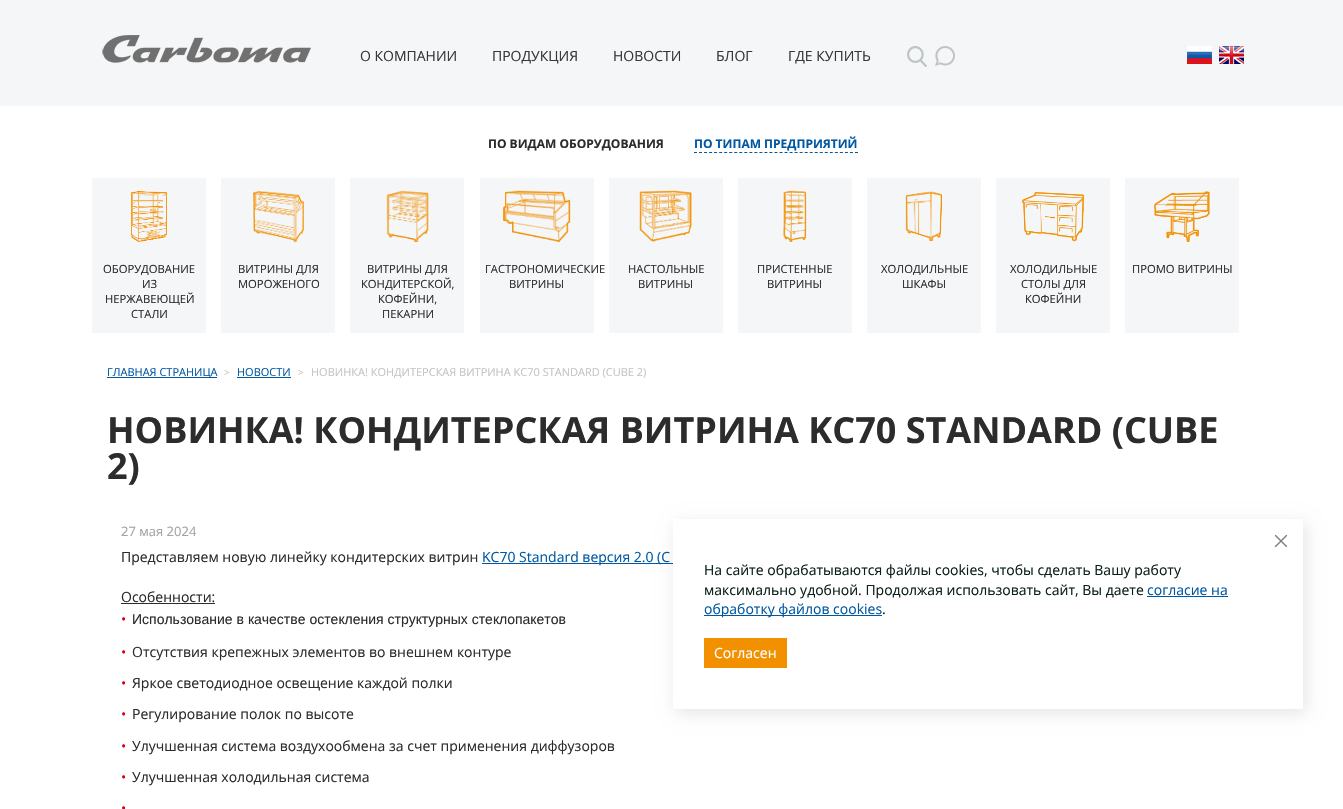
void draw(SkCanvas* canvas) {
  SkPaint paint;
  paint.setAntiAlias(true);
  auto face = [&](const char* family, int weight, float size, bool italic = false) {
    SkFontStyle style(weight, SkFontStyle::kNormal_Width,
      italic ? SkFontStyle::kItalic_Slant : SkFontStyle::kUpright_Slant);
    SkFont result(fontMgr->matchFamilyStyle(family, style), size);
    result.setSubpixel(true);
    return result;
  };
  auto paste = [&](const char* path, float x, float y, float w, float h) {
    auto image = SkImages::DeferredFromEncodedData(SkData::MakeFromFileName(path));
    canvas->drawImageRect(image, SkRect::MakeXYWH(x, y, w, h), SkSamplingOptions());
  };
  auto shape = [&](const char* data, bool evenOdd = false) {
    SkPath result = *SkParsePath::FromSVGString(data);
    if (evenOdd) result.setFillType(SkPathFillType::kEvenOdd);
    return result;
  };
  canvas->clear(0xffffffff);
  paint.setColor(0xfff4f6f7);
  canvas->drawRect(SkRect::MakeXYWH(0, 0, 1343, 106), paint);
  paste("img/1.png", 102, 35, 209, 28);
  paste("img/2.png", 907, 46, 20, 21);
  paste("img/3.png", 935, 46, 20, 20);
  paste("img/4.png", 1187, 46, 25, 18);
  paste("img/5.png", 1219, 46, 25, 18);
  paint.setStroke(true);
  paint.setStrokeWidth(1);
  paint.setColor(0xff0058a3);
  paint.setPathEffect(SkDashPathEffect::Make({{3, 2.03f}}, 0));
  canvas->drawPath(shape("M694 152.5H858"), paint);
  paint.setPathEffect(nullptr);
  paint.setStroke(false);
  paint.setColor(0xfff4f6f7);
  canvas->drawRect(SkRect::MakeXYWH(92, 178, 114, 155), paint);
  paste("img/6.png", 131, 191, 36, 51);
  paste("img/7.png", 131, 191, 36, 51);
  canvas->drawRect(SkRect::MakeXYWH(221, 178, 114, 155), paint);
  paste("img/8.png", 253, 191, 51, 51);
  paste("img/9.png", 253, 191, 51, 51);
  canvas->drawRect(SkRect::MakeXYWH(350, 178, 114, 155), paint);
  paste("img/10.png", 386, 190, 43, 52);
  paste("img/11.png", 386, 190, 43, 52);
  canvas->drawRect(SkRect::MakeXYWH(480, 178, 114, 155), paint);
  paste("img/12.png", 503, 190, 68, 52);
  paste("img/13.png", 503, 190, 68, 52);
  canvas->drawRect(SkRect::MakeXYWH(609, 178, 114, 155), paint);
  paste("img/14.png", 639, 190, 53, 52);
  paste("img/15.png", 639, 190, 53, 52);
  canvas->drawRect(SkRect::MakeXYWH(738, 178, 114, 155), paint);
  paste("img/16.png", 783, 190, 24, 52);
  paste("img/17.png", 783, 190, 24, 52);
  canvas->drawRect(SkRect::MakeXYWH(867, 178, 114, 155), paint);
  paste("img/18.png", 905, 191, 37, 50);
  paste("img/19.png", 905, 191, 37, 50);
  canvas->drawRect(SkRect::MakeXYWH(996, 178, 114, 155), paint);
  paste("img/20.png", 1022, 192, 62, 50);
  paste("img/21.png", 1022, 192, 62, 50);
  canvas->drawRect(SkRect::MakeXYWH(1125, 178, 114, 155), paint);
  paste("img/22.png", 1154, 191, 56, 51);
  paste("img/23.png", 1154, 191, 56, 51);
  {
    const struct { float x, y, w, h; SkColor color; } items[] = {
      {107, 377, 110, 1, 0xff0058a3},
      {237, 377, 54, 1, 0xff0058a3},
      {482, 563, 191, 1, 0xff0058a3},
      {121, 603, 94, 1, 0xff2c2c2c},
    };
    for (auto [x, y, w, h, color] : items) {
      paint.setColor(color);
      canvas->drawRect(SkRect::MakeXYWH(x, y, w, h), paint);
    }
  }
  paint.setColor(0x1a000000);
  paint.setMaskFilter(SkMaskFilter::MakeBlur(kNormal_SkBlurStyle, 7.5f));
  canvas->drawRect(SkRect::MakeXYWH(676, 523, 630, 190), paint);
  paint.setMaskFilter(nullptr);
  paint.setColor(0xffffffff);
  canvas->drawRect(SkRect::MakeXYWH(673, 519, 630, 190), paint);
  paste("img/24.png", 1274, 534, 14, 14);
  {
    const struct { float x, y, w, h; SkColor color; } items[] = {
      {1147, 596, 81, 1, 0xff0058a3},
      {704, 615, 178, 1, 0xff0058a3},
      {704, 638, 83, 30, 0xfff39000},
    };
    for (auto [x, y, w, h, color] : items) {
      paint.setColor(color);
      canvas->drawRect(SkRect::MakeXYWH(x, y, w, h), paint);
    }
  }
  auto f0 = face("Open Sans", 400, 14);
  paint.setColor(0xff373737);
  {
    const struct { const char* s; float x, y; } items[] = {
      {"О КОМПАНИИ", 360, 61},
      {"ПРОДУКЦИЯ", 492, 61},
      {"НОВОСТИ", 613, 61},
      {"БЛОГ", 716, 61},
      {"ГДЕ КУПИТЬ", 788, 61},
    };
    for (auto [s, x, y] : items) {
      canvas->drawString(s, x, y, f0, paint);
    }
  }
  auto f1 = face("Open Sans", 700, 12);
  paint.setColor(0xff2c2c2c);
  canvas->drawString("ПО ВИДАМ ОБОРУДОВАНИЯ", 488, 148, f1, paint);
  paint.setColor(0xff0058a3);
  canvas->drawString("ПО ТИПАМ ПРЕДПРИЯТИЙ", 694, 148, f1, paint);
  auto f2 = face("Open Sans", 400, 11.25f);
  paint.setColor(0xff2c2c2c);
  {
    const struct { const char* s; float x, y; } items[] = {
      {"ОБОРУДОВАНИЕ", 103, 273},
      {"ИЗ", 142, 288},
      {"НЕРЖАВЕЮЩЕЙ", 105, 303},
      {"СТАЛИ", 131, 318},
      {"ВИТРИНЫ ДЛЯ", 238, 273},
      {"МОРОЖЕНОГО", 238, 288},
      {"ВИТРИНЫ ДЛЯ", 367, 273},
      {"КОНДИТЕРСКОЙ,", 361, 288},
      {"КОФЕЙНИ,", 378, 303},
      {"ПЕКАРНИ", 382, 318},
      {"ГАСТРОНОМИЧЕСКИЕ", 485, 273},
      {"ВИТРИНЫ", 509, 288},
      {"НАСТОЛЬНЫЕ", 628, 273},
      {"ВИТРИНЫ", 638, 288},
      {"ПРИСТЕННЫЕ", 757, 273},
      {"ВИТРИНЫ", 767, 288},
      {"ХОЛОДИЛЬНЫЕ", 881, 273},
      {"ШКАФЫ", 902, 288},
      {"ХОЛОДИЛЬНЫЕ", 1010, 273},
      {"СТОЛЫ ДЛЯ", 1021, 288},
      {"КОФЕЙНИ", 1025, 303},
      {"ПРОМО ВИТРИНЫ", 1132, 273},
    };
    for (auto [s, x, y] : items) {
      canvas->drawString(s, x, y, f2, paint);
    }
  }
  auto f3 = face("Open Sans", 400, 11);
  paint.setColor(0xff0058a3);
  canvas->drawString("ГЛАВНАЯ СТРАНИЦА", 107, 376, f3, paint);
  auto f4 = face("Open Sans", 400, 10);
  paint.setColor(0xffc2c5c6);
  canvas->drawString(">", 224, 376, f4, paint);
  paint.setColor(0xff0058a3);
  canvas->drawString("НОВОСТИ", 237, 376, f3, paint);
  paint.setColor(0xffc2c5c6);
  canvas->drawString(">", 298, 376, f4, paint);
  canvas->drawString("НОВИНКА! КОНДИТЕРСКАЯ ВИТРИНА KC70 STANDARD (CUBE 2)", 311, 376, f3, paint);
  auto f5 = face("Open Sans", 700, 36);
  paint.setColor(0xff2c2c2c);
  canvas->drawString("НОВИНКА! КОНДИТЕРСКАЯ ВИТРИНА KC70 STANDARD (CUBE", 107, 443, f5, paint);
  canvas->drawString("2)", 107, 479, f5, paint);
  auto f6 = face("Open Sans", 400, 13);
  paint.setColor(0xffa4a4a4);
  canvas->drawString("27 мая 2024", 121, 536, f6, paint);
  paint.setColor(0xff2c2c2c);
  canvas->drawString("Представляем новую линейку кондитерских витрин", 121, 562, f0, paint);
  paint.setColor(0xff0058a3);
  canvas->drawString("KC70 Standard версия 2.0 (C", 482, 562, f0, paint);
  paint.setColor(0xff2c2c2c);
  canvas->drawString("Особенности:", 121, 602, f0, paint);
  paint.setColor(0xffd4001c);
  canvas->drawString("•", 121, 624, f0, paint);
  auto f7 = face("Liberation Sans", 400, 14);
  paint.setColor(0xff2c2c2c);
  canvas->drawString("Использование в качестве остекления структурных стеклопакетов", 132, 624, f7, paint);
  paint.setColor(0xffd4001c);
  canvas->drawString("•", 121, 657, f0, paint);
  paint.setColor(0xff2c2c2c);
  canvas->drawString("Отсутствия крепежных элементов во внешнем контуре", 132, 657, f0, paint);
  paint.setColor(0xffd4001c);
  canvas->drawString("•", 121, 688, f0, paint);
  paint.setColor(0xff2c2c2c);
  canvas->drawString("Яркое светодиодное освещение каждой полки", 132, 688, f0, paint);
  paint.setColor(0xffd4001c);
  canvas->drawString("•", 121, 719, f0, paint);
  paint.setColor(0xff2c2c2c);
  canvas->drawString("Регулирование полок по высоте", 132, 719, f0, paint);
  paint.setColor(0xffd4001c);
  canvas->drawString("•", 121, 751, f0, paint);
  paint.setColor(0xff2c2c2c);
  canvas->drawString("Улучшенная система воздухообмена за счет применения диффузоров", 132, 751, f0, paint);
  paint.setColor(0xffd4001c);
  canvas->drawString("•", 121, 782, f0, paint);
  paint.setColor(0xff2c2c2c);
  canvas->drawString("Улучшенная холодильная система", 132, 782, f0, paint);
  paint.setColor(0xffd4001c);
  canvas->drawString("•", 121, 813, f0, paint);
  paint.setColor(0xff0b201d);
  canvas->drawString("На сайте обрабатываются файлы cookies, чтобы сделать Вашу работу", 704, 575, f0, paint);
  canvas->drawString("максимально удобной. Продолжая использовать сайт, Вы даете", 704, 595, f0, paint);
  paint.setColor(0xff0058a3);
  canvas->drawString("согласие на", 1147, 595, f0, paint);
  canvas->drawString("обработку файлов cookies", 704, 614, f0, paint);
  paint.setColor(0xff0b201d);
  canvas->drawString(".", 882, 614, f0, paint);
  paint.setColor(0xffffffff);
  canvas->drawString("Согласен", 714, 658, f0, paint);
}
